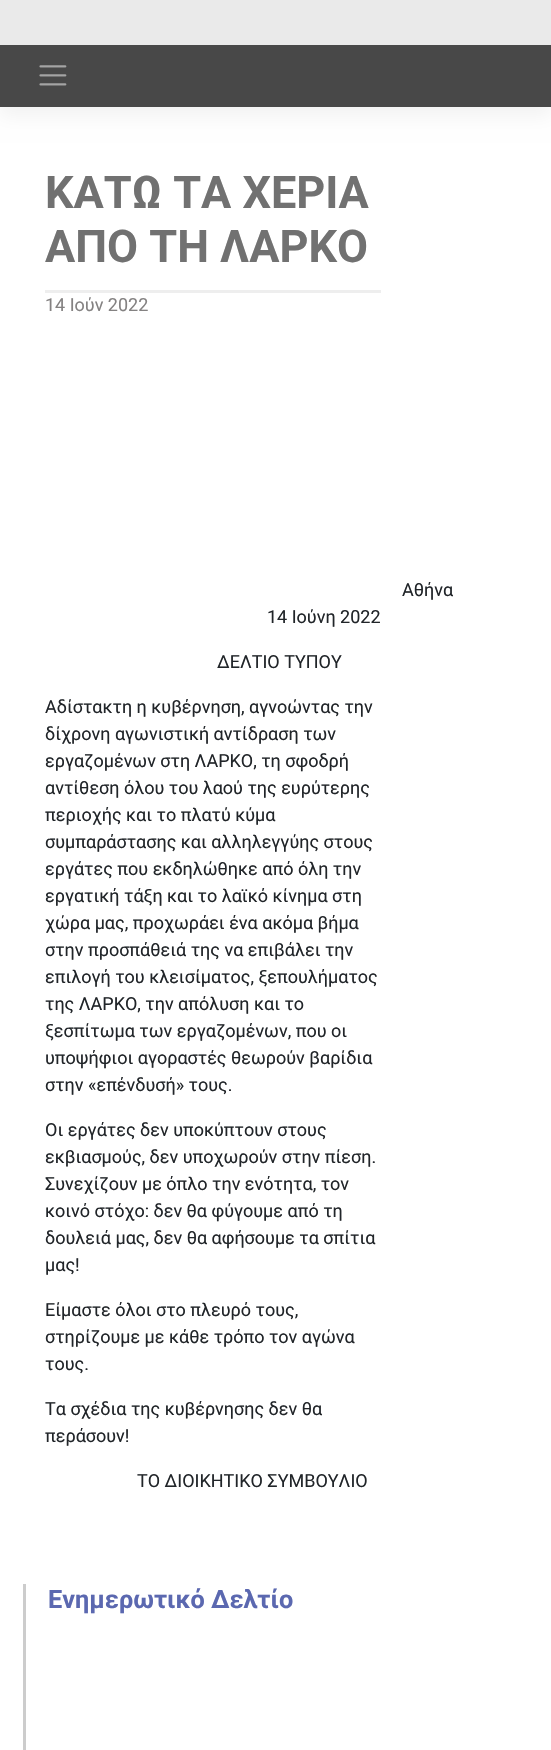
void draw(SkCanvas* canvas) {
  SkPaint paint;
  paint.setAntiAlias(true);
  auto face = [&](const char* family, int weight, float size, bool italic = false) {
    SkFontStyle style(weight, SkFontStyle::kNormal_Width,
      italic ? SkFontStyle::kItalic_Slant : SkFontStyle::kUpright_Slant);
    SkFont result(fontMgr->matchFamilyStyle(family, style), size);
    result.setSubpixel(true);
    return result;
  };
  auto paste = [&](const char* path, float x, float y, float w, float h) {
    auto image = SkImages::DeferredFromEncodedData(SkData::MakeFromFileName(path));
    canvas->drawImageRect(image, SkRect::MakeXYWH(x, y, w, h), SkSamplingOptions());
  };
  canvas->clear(0xffffffff);
  paint.setColor(0x0d000000);
  paint.setMaskFilter(SkMaskFilter::MakeBlur(kNormal_SkBlurStyle, 9));
  canvas->drawRect(SkRect::MakeXYWH(0, 9, 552, 107), paint);
  paint.setMaskFilter(nullptr);
  paint.setColor(0xffeaeaea);
  canvas->drawRect(SkRect::MakeXYWH(0, 0, 551, 45), paint);
  paint.setColor(0xff484848);
  canvas->drawRect(SkRect::MakeXYWH(0, 45, 551, 62), paint);
  paste("img/1.png", 39, 65, 28, 21);
  paint.setColor(0xffeeeeee);
  canvas->drawRect(SkRect::MakeXYWH(45, 290, 336, 3), paint);
  paint.setColor(0xffcccccc);
  canvas->drawRect(SkRect::MakeXYWH(23, 1584, 3, 166), paint);
  auto f0 = face("Roboto", 700, 45);
  paint.setColor(0xff717171);
  canvas->drawString("ΚΑΤΩ ΤΑ ΧΕΡΙΑ", 45, 208, f0, paint);
  canvas->drawString("ΑΠΟ ΤΗ ΛΑΡΚΟ", 45, 262, f0, paint);
  auto f1 = face("Roboto", 400, 18);
  paint.setColor(0xff848282);
  canvas->drawString("14 Ιούν 2022", 45, 311, f1, paint);
  paint.setColor(0xff212529);
  {
    const struct { const char* s; float x, y; } items[] = {
      {"Αθήνα", 402, 596},
      {"14 Ιούνη 2022", 267, 623},
      {"ΔΕΛΤΙΟ ΤΥΠΟΥ", 217, 668},
      {"Αδίστακτη η κυβέρνηση, αγνοώντας την", 45, 713},
      {"δίχρονη αγωνιστική αντίδραση των", 45, 740},
      {"εργαζομένων στη ΛΑΡΚΟ, τη σφοδρή", 45, 767},
      {"αντίθεση όλου του λαού της ευρύτερης", 45, 794},
      {"περιοχής και το πλατύ κύμα", 45, 821},
      {"συμπαράστασης και αλληλεγγύης στους", 45, 848},
      {"εργάτες που εκδηλώθηκε από όλη την", 45, 875},
      {"εργατική τάξη και το λαϊκό κίνημα στη", 45, 902},
      {"χώρα μας, προχωράει ένα ακόμα βήμα", 45, 929},
      {"στην προσπάθειά της να επιβάλει την", 45, 956},
      {"επιλογή του κλεισίματος, ξεπουλήματος", 45, 983},
      {"της ΛΑΡΚΟ, την απόλυση και το", 45, 1010},
      {"ξεσπίτωμα των εργαζομένων, που οι", 45, 1037},
      {"υποψήφιοι αγοραστές θεωρούν βαρίδια", 45, 1064},
      {"στην «επένδυσή» τους.", 45, 1091},
      {"Οι εργάτες δεν υποκύπτουν στους", 45, 1136},
      {"εκβιασμούς, δεν υποχωρούν στην πίεση.", 45, 1163},
      {"Συνεχίζουν με όπλο την ενότητα, τον", 45, 1190},
      {"κοινό στόχο: δεν θα φύγουμε από τη", 45, 1217},
      {"δουλειά μας, δεν θα αφήσουμε τα σπίτια", 45, 1244},
      {"μας!", 45, 1271},
      {"Είμαστε όλοι στο πλευρό τους,", 45, 1316},
      {"στηρίζουμε με κάθε τρόπο τον αγώνα", 45, 1343},
      {"τους.", 45, 1370},
      {"Τα σχέδια της κυβέρνησης δεν θα", 45, 1415},
      {"περάσουν!", 45, 1442},
      {"ΤΟ ΔΙΟΙΚΗΤΙΚΟ ΣΥΜΒΟΥΛΙΟ", 137, 1487},
    };
    for (auto [s, x, y] : items) {
      canvas->drawString(s, x, y, f1, paint);
    }
  }
  auto f2 = face("Roboto", 700, 25.25f);
  paint.setColor(0xff5b68b0);
  canvas->drawString("Ενημερωτικό Δελτίο", 48, 1608, f2, paint);
}
